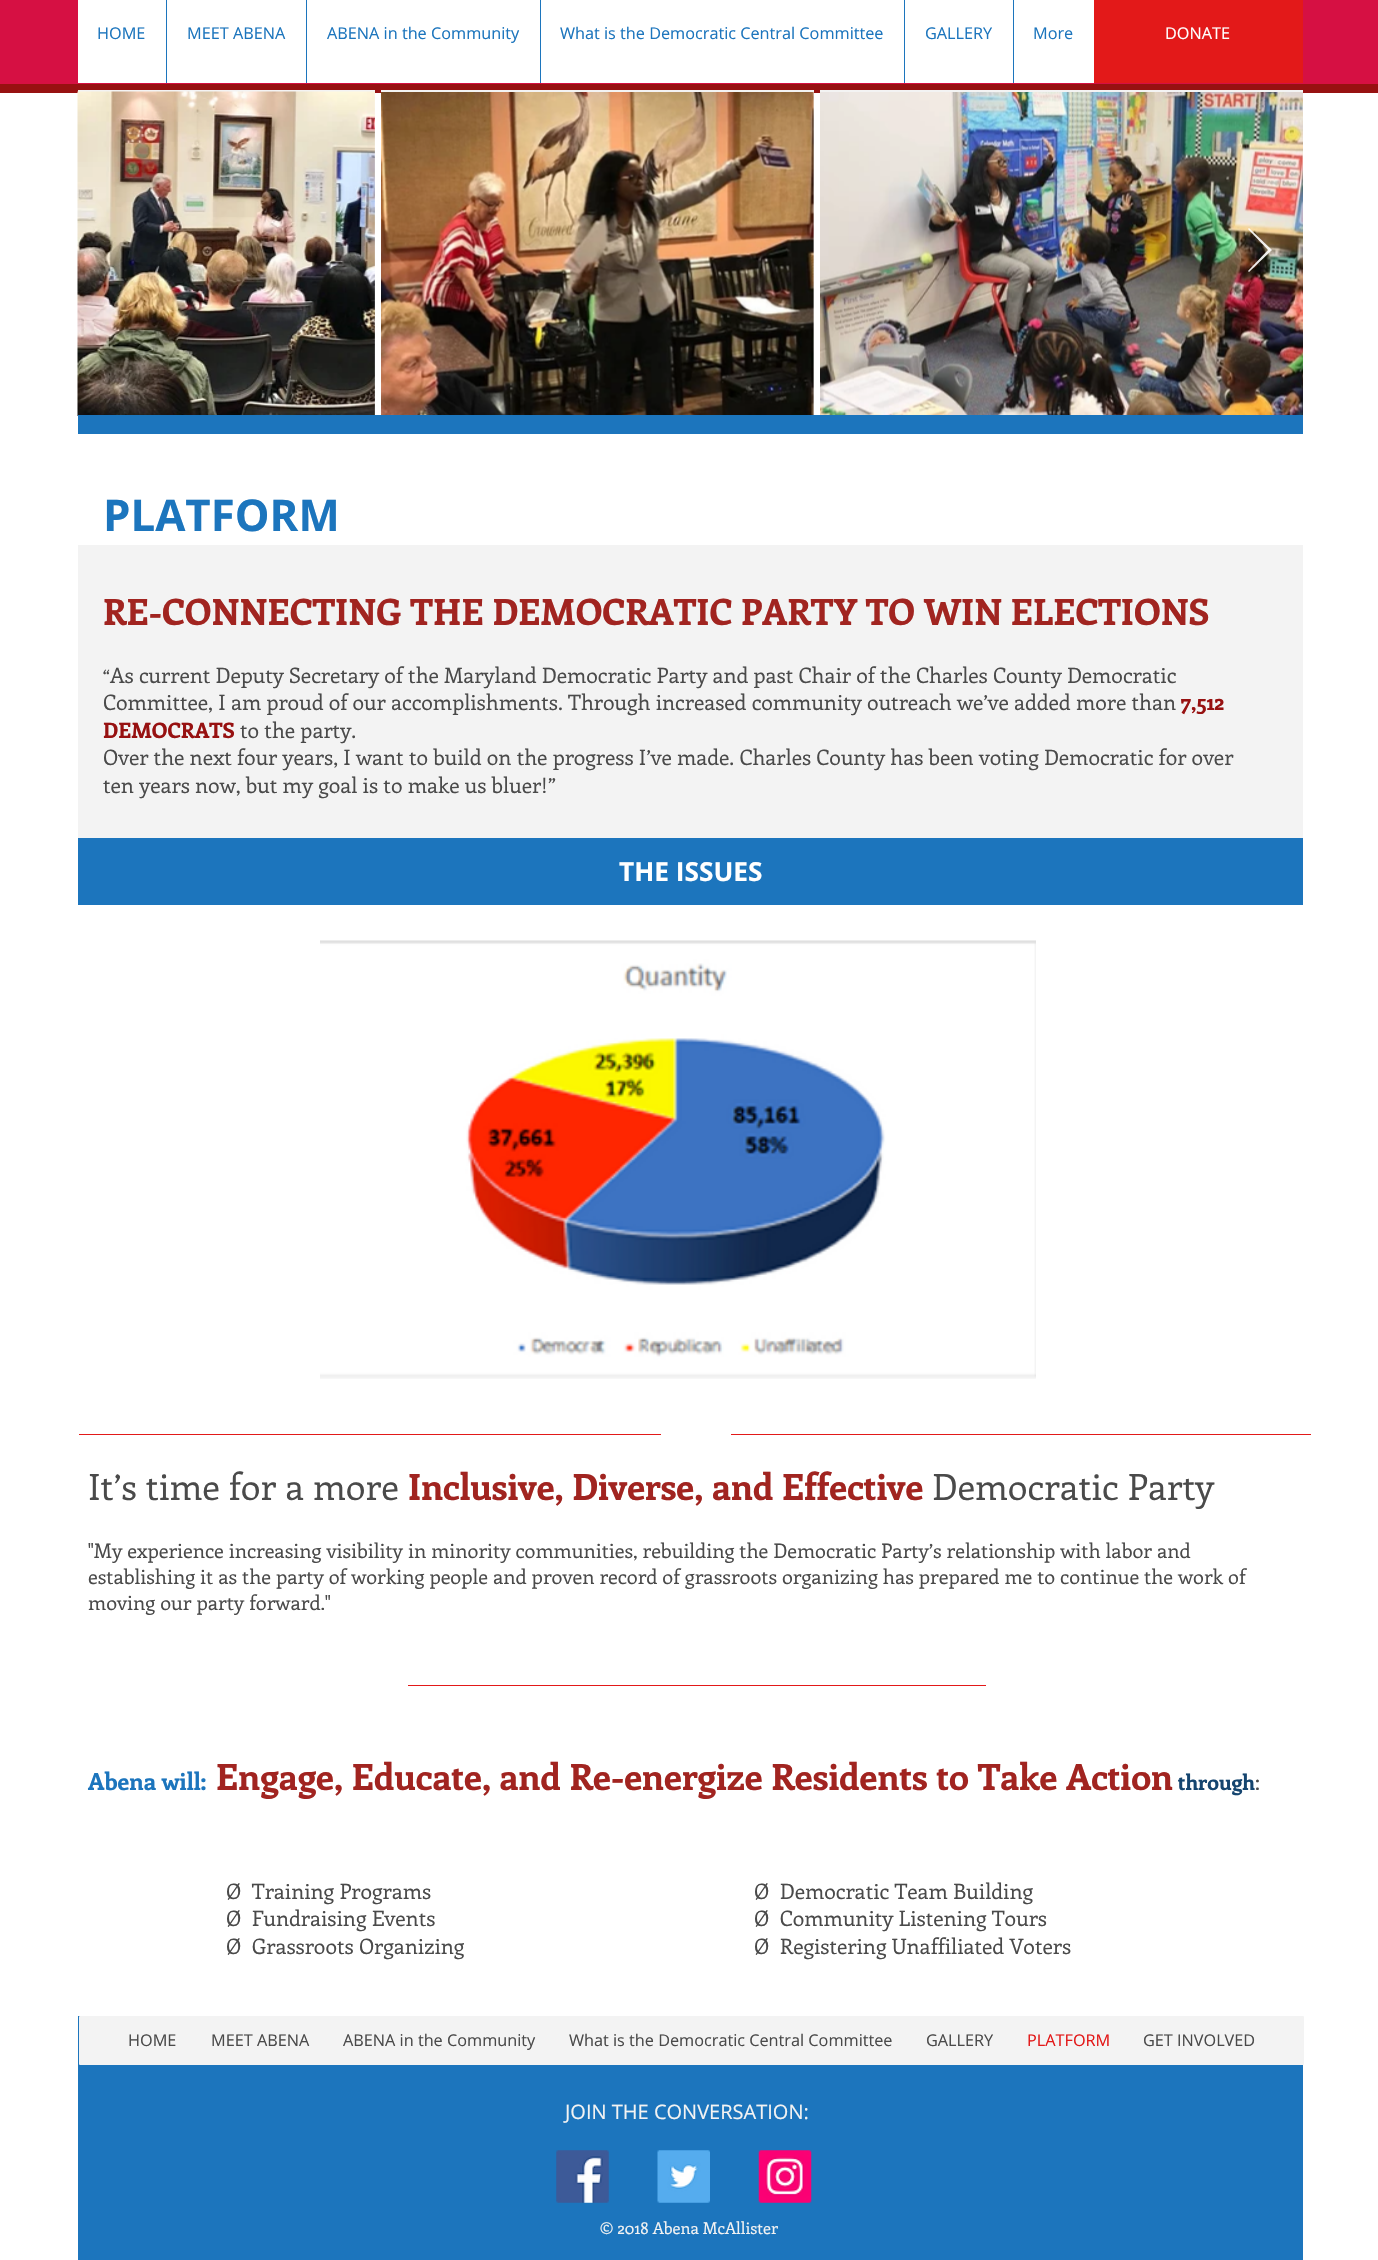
void draw(SkCanvas* canvas) {
  SkPaint paint;
  paint.setAntiAlias(true);
  auto face = [&](const char* family, int weight, float size, bool italic = false) {
    SkFontStyle style(weight, SkFontStyle::kNormal_Width,
      italic ? SkFontStyle::kItalic_Slant : SkFontStyle::kUpright_Slant);
    SkFont result(fontMgr->matchFamilyStyle(family, style), size);
    result.setSubpixel(true);
    return result;
  };
  auto paste = [&](const char* path, float x, float y, float w, float h) {
    auto image = SkImages::DeferredFromEncodedData(SkData::MakeFromFileName(path));
    canvas->drawImageRect(image, SkRect::MakeXYWH(x, y, w, h), SkSamplingOptions());
  };
  auto shape = [&](const char* data, bool evenOdd = false) {
    SkPath result = *SkParsePath::FromSVGString(data);
    if (evenOdd) result.setFillType(SkPathFillType::kEvenOdd);
    return result;
  };
  canvas->clear(0xffffffff);
  {
    const struct { float x, y, w, h; SkColor color; } items[] = {
      {0, 0, 1378, 84, 0xffd61043},
      {0, 84, 1378, 9, 0xff971111},
      {78, 0, 1016, 83, 0xffffffff},
      {166, 0, 1, 83, 0xff1c75bd},
      {306, 0, 1, 83, 0xff1c75bd},
      {540, 0, 1, 83, 0xff1c75bd},
      {904, 0, 1, 83, 0xff1c75bd},
      {1013, 0, 1, 83, 0xff1c75bd},
      {1094, 0, 209, 83, 0xffe31919},
      {78, 90, 297, 325, 0xfff3f3f3},
    };
    for (auto [x, y, w, h, color] : items) {
      paint.setColor(color);
      canvas->drawRect(SkRect::MakeXYWH(x, y, w, h), paint);
    }
  }
  paste("img/1.png", 77, 91, 298, 325);
  canvas->drawRect(SkRect::MakeXYWH(381, 90, 433, 325), paint);
  paste("img/2.png", 381, 92, 433, 323);
  canvas->drawRect(SkRect::MakeXYWH(820, 90, 483, 2), paint);
  paste("img/3.png", 820, 92, 483, 323);
  paint.setColor(0xe6ffffff);
  canvas->drawPath(shape("M1248 229L1249 228L1272 250L1249 272L1248 271L1268 250Z"), paint);
  {
    const struct { float x, y, w, h; SkColor color; } items[] = {
      {78, 415, 1225, 19, 0xff1c75bd},
      {78, 545, 1225, 293, 0xfff3f3f3},
      {78, 838, 1225, 67, 0xff1c75bd},
    };
    for (auto [x, y, w, h, color] : items) {
      paint.setColor(color);
      canvas->drawRect(SkRect::MakeXYWH(x, y, w, h), paint);
    }
  }
  paste("img/4.png", 320, 940, 716, 439);
  {
    const struct { float x, y, w, h; SkColor color; } items[] = {
      {79, 1434, 582, 1, 0xffe31919},
      {731, 1434, 580, 1, 0xffe31919},
      {408, 1685, 578, 1, 0xffe31919},
      {78, 2016, 1225, 244, 0xff1c75bd},
    };
    for (auto [x, y, w, h, color] : items) {
      paint.setColor(color);
      canvas->drawRect(SkRect::MakeXYWH(x, y, w, h), paint);
    }
  }
  paint.setColor(0xfff3f3f3);
  canvas->drawRoundRect(SkRect::MakeXYWH(79, 2016, 1225, 49), 1, 1, paint);
  paste("img/5.png", 556, 2150, 53, 53);
  paste("img/6.png", 657, 2150, 53, 53);
  paste("img/7.png", 758, 2150, 54, 53);
  auto f0 = face("Open Sans", 400, 16.25f);
  paint.setColor(0xff1c75bd);
  {
    const struct { const char* s; float x, y; } items[] = {
      {"HOME", 97, 39},
      {"MEET ABENA", 187, 39},
      {"ABENA in the Community", 327, 39},
      {"What is the Democratic Central Committee", 560, 39},
      {"GALLERY", 925, 39},
      {"More", 1033, 39},
    };
    for (auto [s, x, y] : items) {
      canvas->drawString(s, x, y, f0, paint);
    }
  }
  paint.setColor(0xffffffff);
  canvas->drawString("DONATE", 1165, 39, f0, paint);
  auto f1 = face("Open Sans", 700, 43.75f);
  paint.setColor(0xff1c75bd);
  canvas->drawString("PLATFORM", 103, 531, f1, paint);
  auto f2 = face("Enriqueta", 700, 36.25f);
  paint.setColor(0xffa12420);
  canvas->drawString("RE-CONNECTING THE DEMOCRATIC PARTY TO WIN ELECTIONS", 103, 625, f2, paint);
  auto f3 = face("Enriqueta", 400, 19);
  paint.setColor(0xff4a4a4a);
  canvas->drawString("“", 103, 683, f3, paint);
  auto f4 = face("Enriqueta", 400, 21.25f);
  canvas->drawString("As current Deputy Secretary of the Maryland Democratic Party and past Chair of the Charles County Democratic", 110, 683, f4, paint);
  canvas->drawString("Committee, I am proud of our accomplishments. Through increased community outreach we’ve added more than", 103, 710, f4, paint);
  auto f5 = face("Enriqueta", 700, 21.25f);
  paint.setColor(0xff971111);
  canvas->drawString("7,512", 1181, 710, f5, paint);
  canvas->drawString("DEMOCRATS", 103, 738, f5, paint);
  paint.setColor(0xff4a4a4a);
  {
    const struct { const char* s; float x, y; } items[] = {
      {"to the party.", 240, 738},
      {"Over the next four years, I want to build on the progress I’ve made. Charles County has been voting Democratic for over", 103, 765},
      {"ten years now, but my goal is to make us bluer!”", 103, 793},
    };
    for (auto [s, x, y] : items) {
      canvas->drawString(s, x, y, f4, paint);
    }
  }
  auto f6 = face("Open Sans", 700, 26.25f);
  paint.setColor(0xffffffff);
  canvas->drawString("THE ISSUES", 619, 881, f6, paint);
  auto f7 = face("Enriqueta", 400, 36.25f);
  paint.setColor(0xff4a4a4a);
  canvas->drawString("It’s time for a more", 88, 1500, f7, paint);
  paint.setColor(0xffa12420);
  canvas->drawString("Inclusive, Diverse, and Effective", 408, 1500, f2, paint);
  paint.setColor(0xff4a4a4a);
  canvas->drawString("Democratic Party", 932, 1500, f7, paint);
  auto f8 = face("Enriqueta", 400, 20);
  {
    const struct { const char* s; float x, y; } items[] = {
      {"\"My experience increasing visibility in minority communities, rebuilding the Democratic Party’s relationship with labor and", 88, 1558},
      {"establishing it as the party of working people and proven record of grassroots organizing has prepared me to continue the work of", 88, 1584},
      {"moving our party forward.\"", 88, 1610},
    };
    for (auto [s, x, y] : items) {
      canvas->drawString(s, x, y, f8, paint);
    }
  }
  auto f9 = face("Enriqueta", 700, 23.75f);
  paint.setColor(0xff1c75bd);
  canvas->drawString("Abena will:", 88, 1790, f9, paint);
  paint.setColor(0xffa12420);
  canvas->drawString("Engage, Educate, and Re-energize Residents to Take Action", 216, 1790, f2, paint);
  paint.setColor(0xff15456f);
  canvas->drawString("through", 1178, 1790, f5, paint);
  paint.setColor(0xff4a4a4a);
  {
    const struct { const char* s; float x, y; } items[] = {
      {":", 1255, 1790},
      {"Ø  Training Programs", 226, 1899},
      {"Ø  Fundraising Events", 226, 1926},
      {"Ø  Grassroots Organizing", 226, 1954},
      {"Ø  Democratic Team Building", 754, 1899},
      {"Ø  Community Listening Tours", 754, 1926},
      {"Ø  Registering Unaffiliated Voters", 754, 1954},
    };
    for (auto [s, x, y] : items) {
      canvas->drawString(s, x, y, f4, paint);
    }
  }
  {
    const struct { const char* s; float x, y; } items[] = {
      {"HOME", 128, 2046},
      {"MEET ABENA", 211, 2046},
      {"ABENA in the Community", 343, 2046},
      {"What is the Democratic Central Committee", 569, 2046},
      {"GALLERY", 926, 2046},
    };
    for (auto [s, x, y] : items) {
      canvas->drawString(s, x, y, f0, paint);
    }
  }
  paint.setColor(0xffe31919);
  canvas->drawString("PLATFORM", 1027, 2046, f0, paint);
  paint.setColor(0xff4a4a4a);
  canvas->drawString("GET INVOLVED", 1143, 2046, f0, paint);
  auto f10 = face("Open Sans", 400, 20);
  paint.setColor(0xfff3f3f3);
  canvas->drawString("JOIN THE CONVERSATION:", 565, 2119, f10, paint);
  auto f11 = face("Enriqueta", 400, 16.25f);
  canvas->drawString("© 2018 Abena McAllister", 600, 2234, f11, paint);
}
